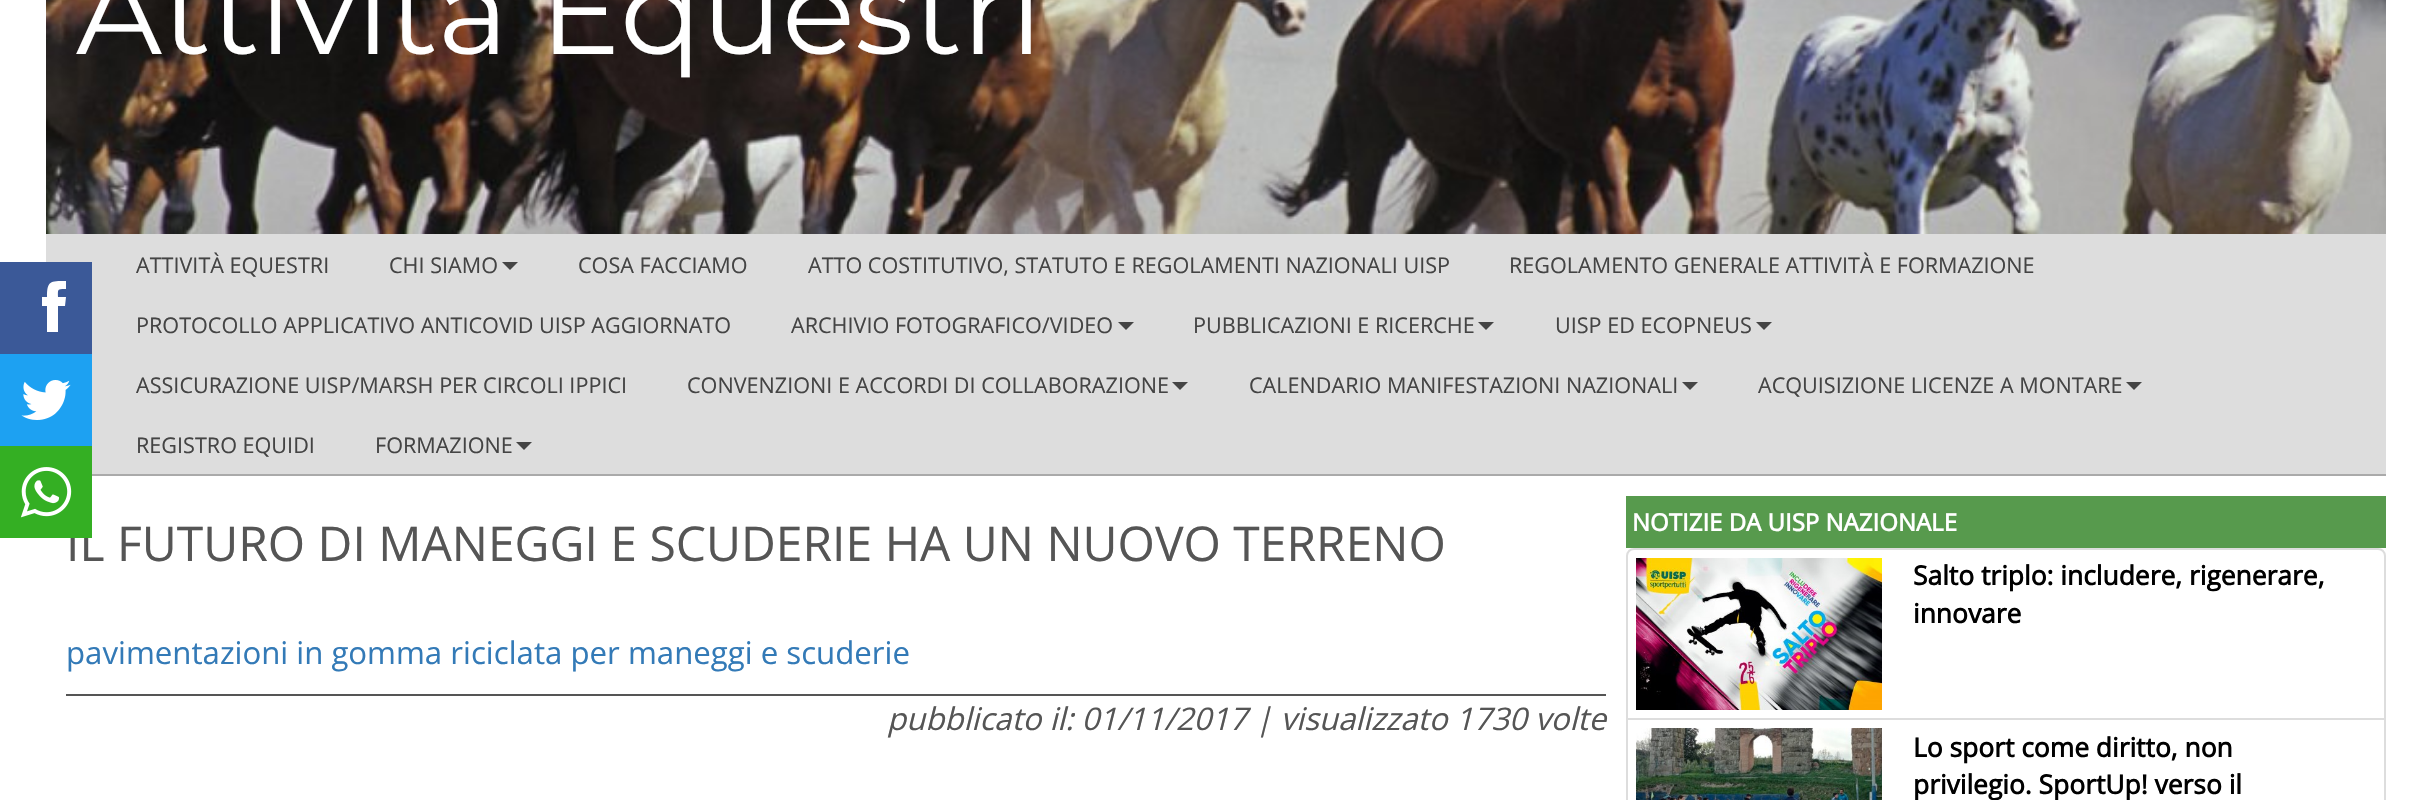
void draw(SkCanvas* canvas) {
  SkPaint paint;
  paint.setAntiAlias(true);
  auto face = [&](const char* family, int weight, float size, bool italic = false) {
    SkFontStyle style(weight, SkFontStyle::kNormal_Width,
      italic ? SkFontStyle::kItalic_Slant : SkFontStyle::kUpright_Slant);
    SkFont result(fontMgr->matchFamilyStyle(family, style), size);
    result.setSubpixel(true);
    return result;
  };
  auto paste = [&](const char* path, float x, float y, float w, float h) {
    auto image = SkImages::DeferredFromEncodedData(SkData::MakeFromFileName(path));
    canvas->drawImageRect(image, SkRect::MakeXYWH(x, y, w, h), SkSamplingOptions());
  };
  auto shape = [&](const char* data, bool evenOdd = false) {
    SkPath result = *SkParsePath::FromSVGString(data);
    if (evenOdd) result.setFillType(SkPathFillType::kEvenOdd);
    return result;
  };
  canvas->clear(0xffffffff);
  paste("img/1.png", 46, 0, 2340, 234);
  paint.setColor(0xffdddddd);
  canvas->drawRect(SkRect::MakeXYWH(46, 234, 2340, 240), paint);
  paint.setColor(0xffaaaaaa);
  canvas->drawRect(SkRect::MakeXYWH(92, 474, 2294, 2), paint);
  paint.setColor(0xff444444);
  canvas->drawPath(shape("M502 262H518L510 270Z"), paint);
  canvas->drawPath(shape("M1118 322H1134L1126 330Z"), paint);
  canvas->drawPath(shape("M1478 322H1494L1486 330Z"), paint);
  canvas->drawPath(shape("M1756 322H1772L1764 330Z"), paint);
  canvas->drawPath(shape("M1172 382H1188L1180 390Z"), paint);
  canvas->drawPath(shape("M1682 382H1698L1690 390Z"), paint);
  canvas->drawPath(shape("M2126 382H2142L2134 390Z"), paint);
  canvas->drawPath(shape("M516 442H532L524 450Z"), paint);
  paint.setColor(0xff3b5998);
  canvas->drawRect(SkRect::MakeXYWH(0, 262, 92, 92), paint);
  paint.setColor(0xffffffff);
  canvas->drawPath(shape("M58 297C58 289 57 289 66 289V281C50 281 47 281 47 297H42V306H47V332H58V306H65L66 297Z"), paint);
  paint.setColor(0xff1da1f2);
  canvas->drawRect(SkRect::MakeXYWH(0, 354, 92, 92), paint);
  paste("img/2.png", 21, 380, 50, 40);
  paint.setColor(0xff555555);
  canvas->drawRect(SkRect::MakeXYWH(66, 694, 1540, 2), paint);
  paint.setColor(0xff579a4d);
  canvas->drawRect(SkRect::MakeXYWH(1626, 496, 760, 52), paint);
  paint.setStroke(true);
  paint.setStrokeWidth(2);
  paint.setColor(0xffdddddd);
  canvas->drawPath(shape("M1634 549H2378C2382 549 2385 552 2385 556V719H1627V556C1627 552 1630 549 1634 549Z"), paint);
  paste("img/4.png", 1636, 558, 246, 152);
  canvas->drawRect(SkRect::MakeXYWH(1627, 719, 758, 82), paint);
  paste("img/5.png", 1636, 728, 246, 72);
  auto f0 = face("Montserrat", 400, 120);
  paint.setStroke(false);
  paint.setColor(0xffffffff);
  canvas->drawString("Attività Equestri", 76, 54, f0, paint);
  auto f1 = face("Open Sans", 400, 21.6f);
  paint.setColor(0xff444444);
  {
    const struct { const char* s; float x, y; } items[] = {
      {"ATTIVITÀ EQUESTRI", 136, 273},
      {"CHI SIAMO", 389, 273},
      {"COSA FACCIAMO", 578, 273},
      {"ATTO COSTITUTIVO, STATUTO E REGOLAMENTI NAZIONALI UISP", 808, 273},
      {"REGOLAMENTO GENERALE ATTIVITÀ E FORMAZIONE", 1509, 273},
      {"PROTOCOLLO APPLICATIVO ANTICOVID UISP AGGIORNATO", 136, 333},
      {"ARCHIVIO FOTOGRAFICO/VIDEO", 791, 333},
      {"PUBBLICAZIONI E RICERCHE", 1193, 333},
      {"UISP ED ECOPNEUS", 1555, 333},
      {"ASSICURAZIONE UISP/MARSH PER CIRCOLI IPPICI", 136, 393},
      {"CONVENZIONI E ACCORDI DI COLLABORAZIONE", 687, 393},
      {"CALENDARIO MANIFESTAZIONI NAZIONALI", 1249, 393},
      {"ACQUISIZIONE LICENZE A MONTARE", 1758, 393},
      {"REGISTRO EQUIDI", 136, 453},
      {"FORMAZIONE", 375, 453},
    };
    for (auto [s, x, y] : items) {
      canvas->drawString(s, x, y, f1, paint);
    }
  }
  auto f2 = face("Open Sans", 400, 48);
  paint.setColor(0xff555555);
  canvas->drawString("IL FUTURO DI MANEGGI E SCUDERIE HA UN NUOVO TERRENO", 66, 561, f2, paint);
  paint.setColor(0xff34af23);
  canvas->drawRect(SkRect::MakeXYWH(0, 446, 92, 92), paint);
  paste("img/3.png", 20, 467, 52, 51);
  auto f3 = face("Open Sans", 400, 31.2f);
  paint.setColor(0xff337ab7);
  canvas->drawString("pavimentazioni in gomma riciclata per maneggi e scuderie", 66, 664, f3, paint);
  auto f4 = face("Open Sans", 400, 31.2f, true);
  paint.setColor(0xff555555);
  canvas->drawString("pubblicato il: 01/11/2017 | visualizzato 1730 volte", 887, 730, f4, paint);
  auto f5 = face("Open Sans", 700, 24);
  paint.setColor(0xffffffff);
  canvas->drawString("NOTIZIE DA UISP NAZIONALE", 1632, 531, f5, paint);
  auto f6 = face("Open Sans", 700, 26.4f);
  paint.setColor(0xff000000);
  {
    const struct { const char* s; float x, y; } items[] = {
      {"Salto triplo: includere, rigenerare,", 1913, 585},
      {"innovare", 1913, 623},
      {"Lo sport come diritto, non", 1913, 757},
      {"privilegio. SportUp! verso il", 1913, 794},
    };
    for (auto [s, x, y] : items) {
      canvas->drawString(s, x, y, f6, paint);
    }
  }
}
